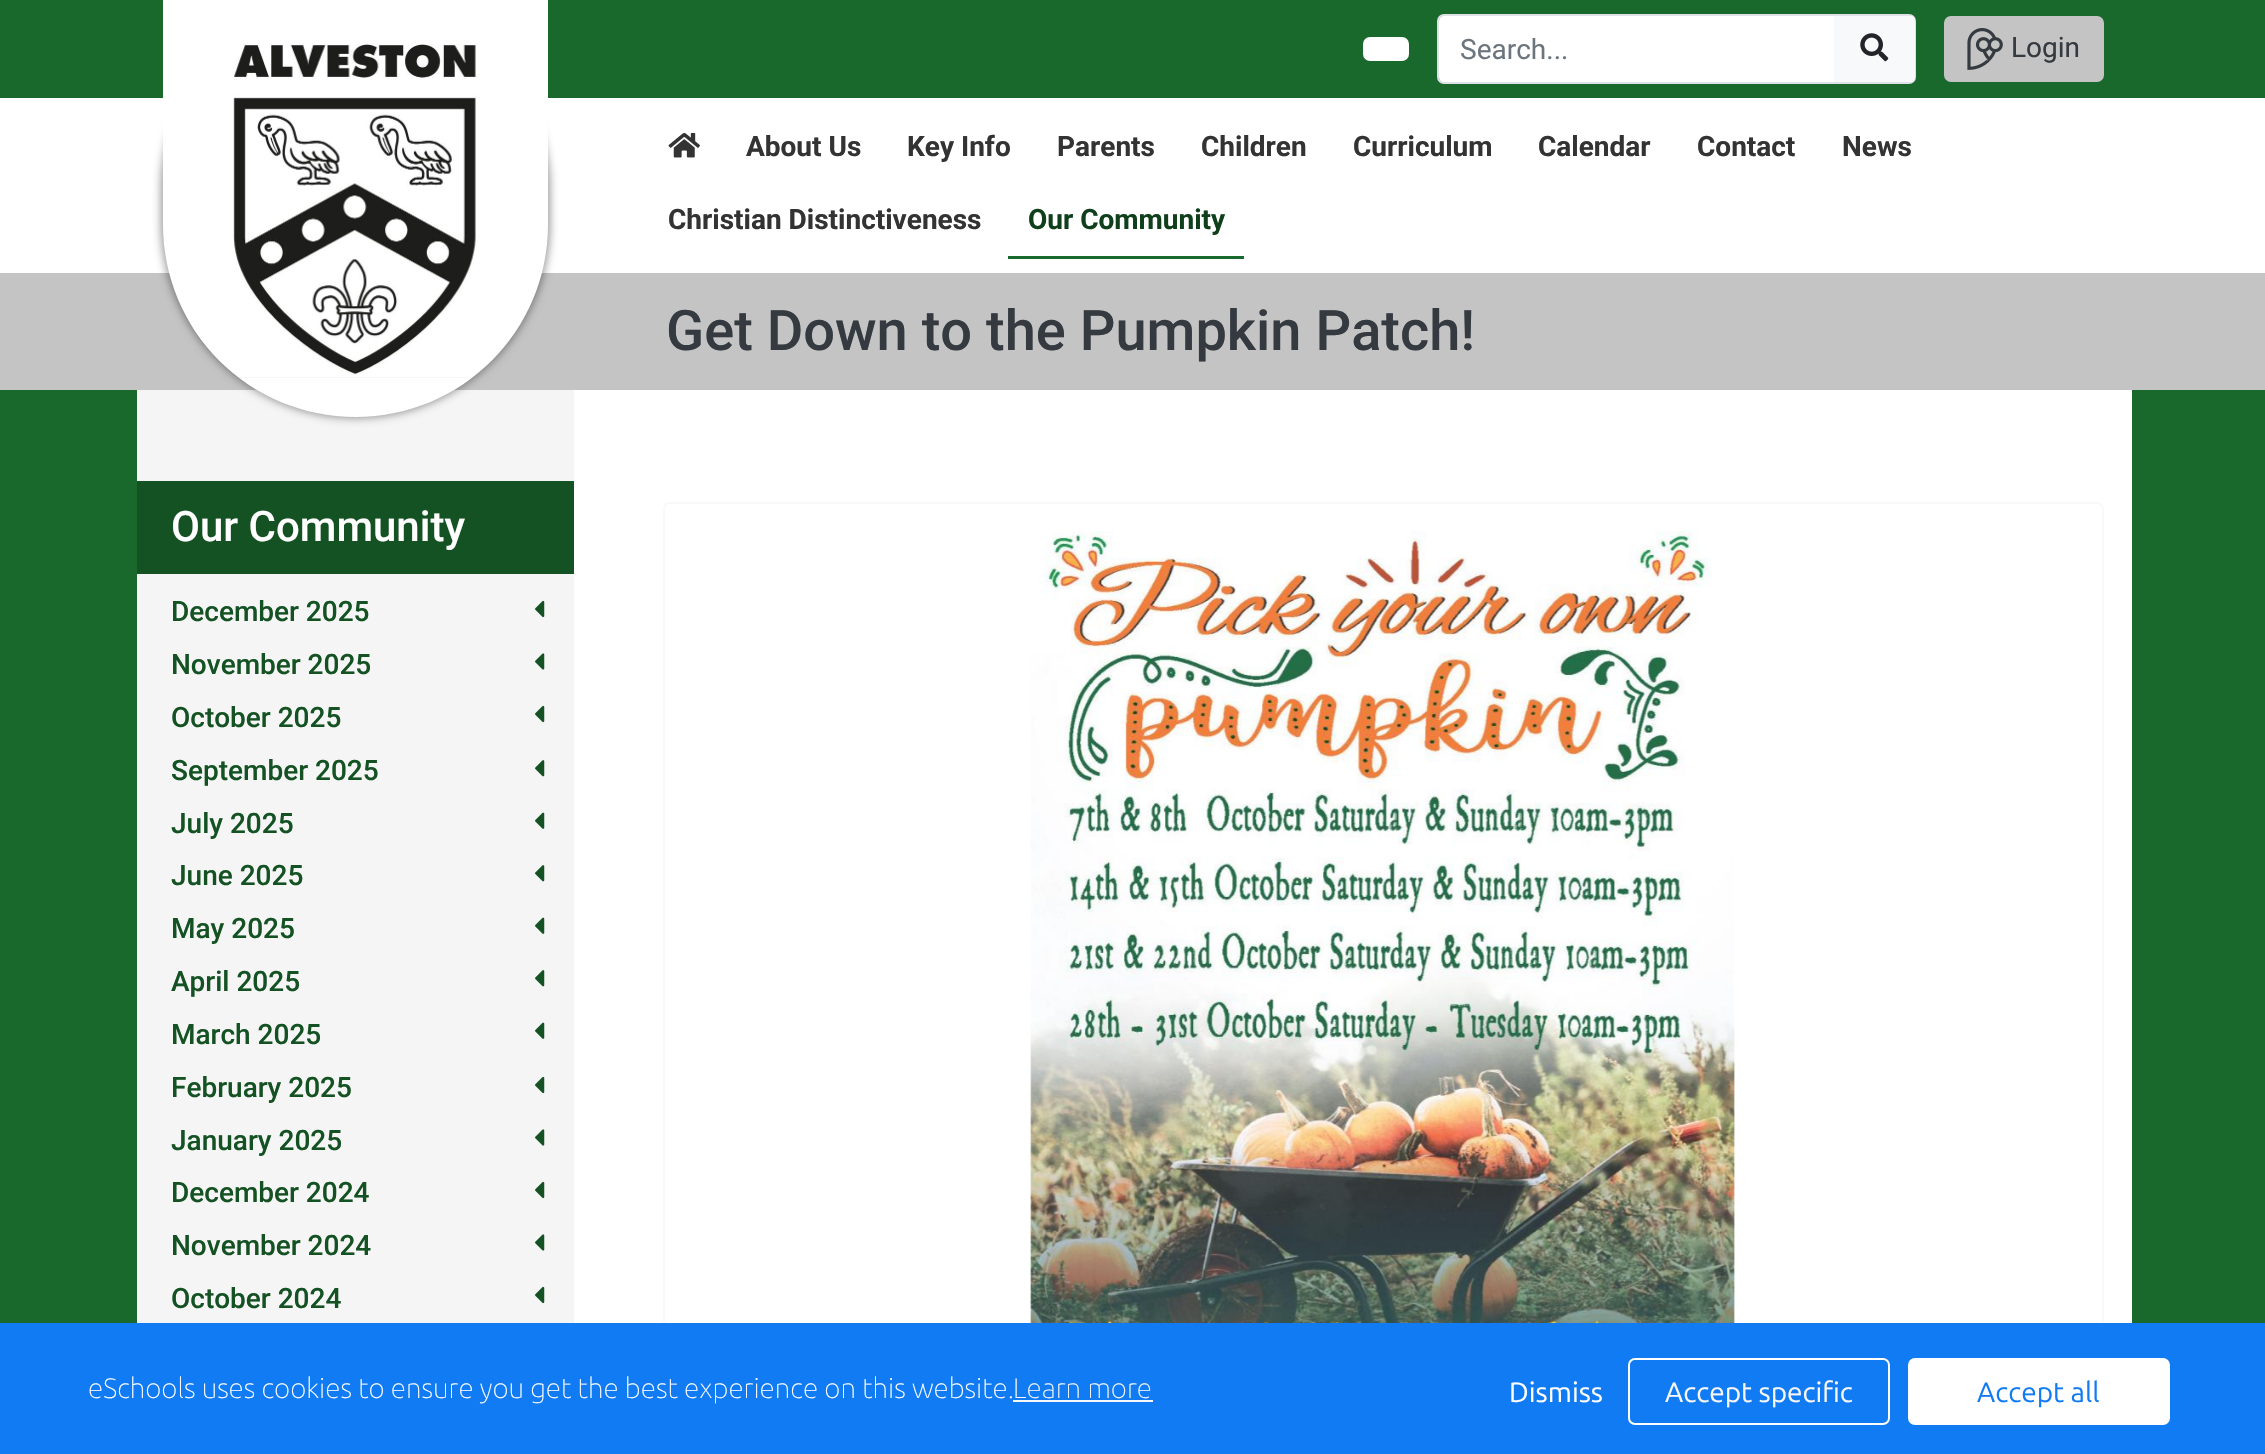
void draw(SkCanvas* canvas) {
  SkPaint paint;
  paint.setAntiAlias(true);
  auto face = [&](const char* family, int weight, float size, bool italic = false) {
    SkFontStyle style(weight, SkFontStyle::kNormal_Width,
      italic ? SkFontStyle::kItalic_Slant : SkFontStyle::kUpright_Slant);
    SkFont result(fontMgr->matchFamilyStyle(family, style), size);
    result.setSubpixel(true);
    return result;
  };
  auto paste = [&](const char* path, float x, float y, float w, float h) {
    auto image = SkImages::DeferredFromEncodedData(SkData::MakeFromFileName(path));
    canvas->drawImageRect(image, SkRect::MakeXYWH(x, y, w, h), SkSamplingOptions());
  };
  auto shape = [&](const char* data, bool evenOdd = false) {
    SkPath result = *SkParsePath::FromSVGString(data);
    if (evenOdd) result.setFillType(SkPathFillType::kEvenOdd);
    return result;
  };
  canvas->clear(0xffffffff);
  {
    const struct { float x, y, w, h; SkColor color; } items[] = {
      {0, 0, 2265, 98, 0xff19692d},
      {0, 273, 2265, 117, 0xffc4c4c4},
      {0, 390, 2265, 933, 0xff19692d},
      {137, 390, 437, 933, 0xfff5f5f5},
    };
    for (auto [x, y, w, h, color] : items) {
      paint.setColor(color);
      canvas->drawRect(SkRect::MakeXYWH(x, y, w, h), paint);
    }
  }
  paint.setColor(0x66000000);
  paint.setMaskFilter(SkMaskFilter::MakeBlur(kNormal_SkBlurStyle, 4.5f));
  canvas->drawRoundRect(SkRect::MakeXYWH(161, -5, 389, 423), 194.5f, 194.5f, paint);
  paint.setMaskFilter(nullptr);
  paint.setColor(0xffffffff);
  canvas->drawPath(shape("M163-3H548V224.5C548 331 462 417 355.5 417C249 417 163 331 163 224.5Z"), paint);
  paste("img/1.png", 192, 43, 323, 335);
  canvas->drawRoundRect(SkRect::MakeXYWH(1363, 37, 46, 24), 7, 7, paint);
  paint.setStroke(true);
  paint.setStrokeWidth(2);
  paint.setColor(0xffdee2e6);
  canvas->drawRoundRect(SkRect::MakeXYWH(1438, 15, 477, 68), 6, 6, paint);
  paint.setStroke(false);
  paint.setColor(0xffffffff);
  canvas->drawPath(shape("M1444 16H1836V82H1444C1441 82 1439 80 1439 77V21C1439 18 1441 16 1444 16Z"), paint);
  paint.setColor(0xfff8f9fa);
  canvas->drawPath(shape("M1834 16H1910C1913 16 1915 18 1915 21V77C1915 80 1913 82 1910 82H1834Z"), paint);
  canvas->drawPath(shape("M1834 16V82H1910C1913 82 1915 80 1915 77V21C1915 18 1913 16 1910 16ZM1836 18V80H1913V18Z", true), paint);
  paste("img/2.png", 1860, 33, 29, 29);
  paint.setColor(0xffc4c4c4);
  canvas->drawRoundRect(SkRect::MakeXYWH(1945, 17, 158, 64), 6, 6, paint);
  paint.setStroke(true);
  canvas->drawRoundRect(SkRect::MakeXYWH(1945, 17, 158, 64), 6, 6, paint);
  paste("img/3.png", 1967, 28, 36, 42);
  paste("img/4.png", 668, 133, 32, 25);
  paint.setStroke(false);
  {
    const struct { float x, y, w, h; SkColor color; } items[] = {
      {1008, 256, 236, 3, 0xff19692d},
      {574, 390, 1558, 933, 0xffffffff},
      {137, 481, 437, 93, 0xff145223},
    };
    for (auto [x, y, w, h, color] : items) {
      paint.setColor(color);
      canvas->drawRect(SkRect::MakeXYWH(x, y, w, h), paint);
    }
  }
  paste("img/5.png", 535, 600, 10, 18);
  paste("img/6.png", 535, 653, 10, 17);
  paste("img/5.png", 535, 705, 10, 18);
  paste("img/7.png", 535, 760, 10, 17);
  paste("img/8.png", 535, 812, 10, 17);
  paste("img/7.png", 535, 865, 10, 17);
  paste("img/8.png", 535, 917, 10, 17);
  paste("img/7.png", 535, 970, 10, 17);
  paste("img/8.png", 535, 1022, 10, 17);
  paste("img/5.png", 535, 1076, 10, 18);
  paste("img/6.png", 535, 1129, 10, 17);
  paste("img/5.png", 535, 1181, 10, 18);
  paste("img/6.png", 535, 1234, 10, 17);
  paste("img/5.png", 535, 1286, 10, 18);
  paint.setStroke(true);
  paint.setColor(0xfff8f9fa);
  canvas->drawRoundRect(SkRect::MakeXYWH(664, 503, 1439, 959), 6, 6, paint);
  paste("img/9.png", 1030, 530, 705, 793);
  paint.setStroke(false);
  paint.setColor(0xff117bf3);
  canvas->drawRect(SkRect::MakeXYWH(0, 1323, 2265, 131), paint);
  paint.setColor(0xfff7f7f7);
  canvas->drawRect(SkRect::MakeXYWH(1013, 1400, 140, 2), paint);
  paint.setStroke(true);
  paint.setColor(0xffffffff);
  canvas->drawRoundRect(SkRect::MakeXYWH(1629, 1359, 260, 65), 6, 6, paint);
  paint.setStroke(false);
  canvas->drawRoundRect(SkRect::MakeXYWH(1909, 1359, 260, 65), 6, 6, paint);
  paint.setStroke(true);
  canvas->drawRoundRect(SkRect::MakeXYWH(1909, 1359, 260, 65), 6, 6, paint);
  auto f0 = face("Roboto", 400, 28);
  paint.setStroke(false);
  paint.setColor(0xff6c757d);
  canvas->drawString("Search...", 1460, 59, f0, paint);
  paint.setColor(0xff343a40);
  canvas->drawString("Login", 2011, 57, f0, paint);
  auto f1 = face("Roboto", 700, 28);
  paint.setColor(0xff333333);
  {
    const struct { const char* s; float x, y; } items[] = {
      {"About Us", 746, 156},
      {"Key Info", 907, 156},
      {"Parents", 1057, 156},
      {"Children", 1201, 156},
      {"Curriculum", 1353, 156},
      {"Calendar", 1538, 156},
      {"Contact", 1697, 156},
      {"News", 1842, 156},
      {"Christian Distinctiveness", 668, 229},
    };
    for (auto [s, x, y] : items) {
      canvas->drawString(s, x, y, f1, paint);
    }
  }
  paint.setColor(0xff0f3f1b);
  canvas->drawString("Our Community", 1028, 229, f1, paint);
  auto f2 = face("Roboto", 500, 56);
  paint.setColor(0xff343a40);
  canvas->drawString("Get Down to the Pumpkin Patch!", 666, 350, f2, paint);
  auto f3 = face("Roboto", 500, 42);
  paint.setColor(0xffffffff);
  canvas->drawString("Our Community", 171, 541, f3, paint);
  auto f4 = face("Roboto", 500, 28);
  paint.setColor(0xff145223);
  {
    const struct { const char* s; float x, y; } items[] = {
      {"December 2025", 171, 621},
      {"November 2025", 171, 674},
      {"October 2025", 171, 727},
      {"September 2025", 171, 780},
      {"July 2025", 171, 833},
      {"June 2025", 171, 885},
      {"May 2025", 171, 938},
      {"April 2025", 171, 991},
      {"March 2025", 171, 1044},
      {"February 2025", 171, 1097},
      {"January 2025", 171, 1150},
      {"December 2024", 171, 1202},
      {"November 2024", 171, 1255},
      {"October 2024", 171, 1308},
    };
    for (auto [s, x, y] : items) {
      canvas->drawString(s, x, y, f4, paint);
    }
  }
  auto f5 = face("Ubuntu", 100, 28);
  paint.setColor(0xffffffff);
  canvas->drawString("eSchools uses cookies to ensure you get the best experience on this website.", 88, 1398, f5, paint);
  paint.setColor(0xfff7f7f7);
  canvas->drawString("Learn more", 1013, 1398, f5, paint);
  auto f6 = face("Ubuntu", 400, 28);
  paint.setColor(0xffffffff);
  canvas->drawString("Dismiss", 1509, 1402, f6, paint);
  paint.setColor(0xfff7f7f7);
  canvas->drawString("Accept specific", 1665, 1402, f6, paint);
  paint.setColor(0xff117bf3);
  canvas->drawString("Accept all", 1977, 1402, f6, paint);
}
